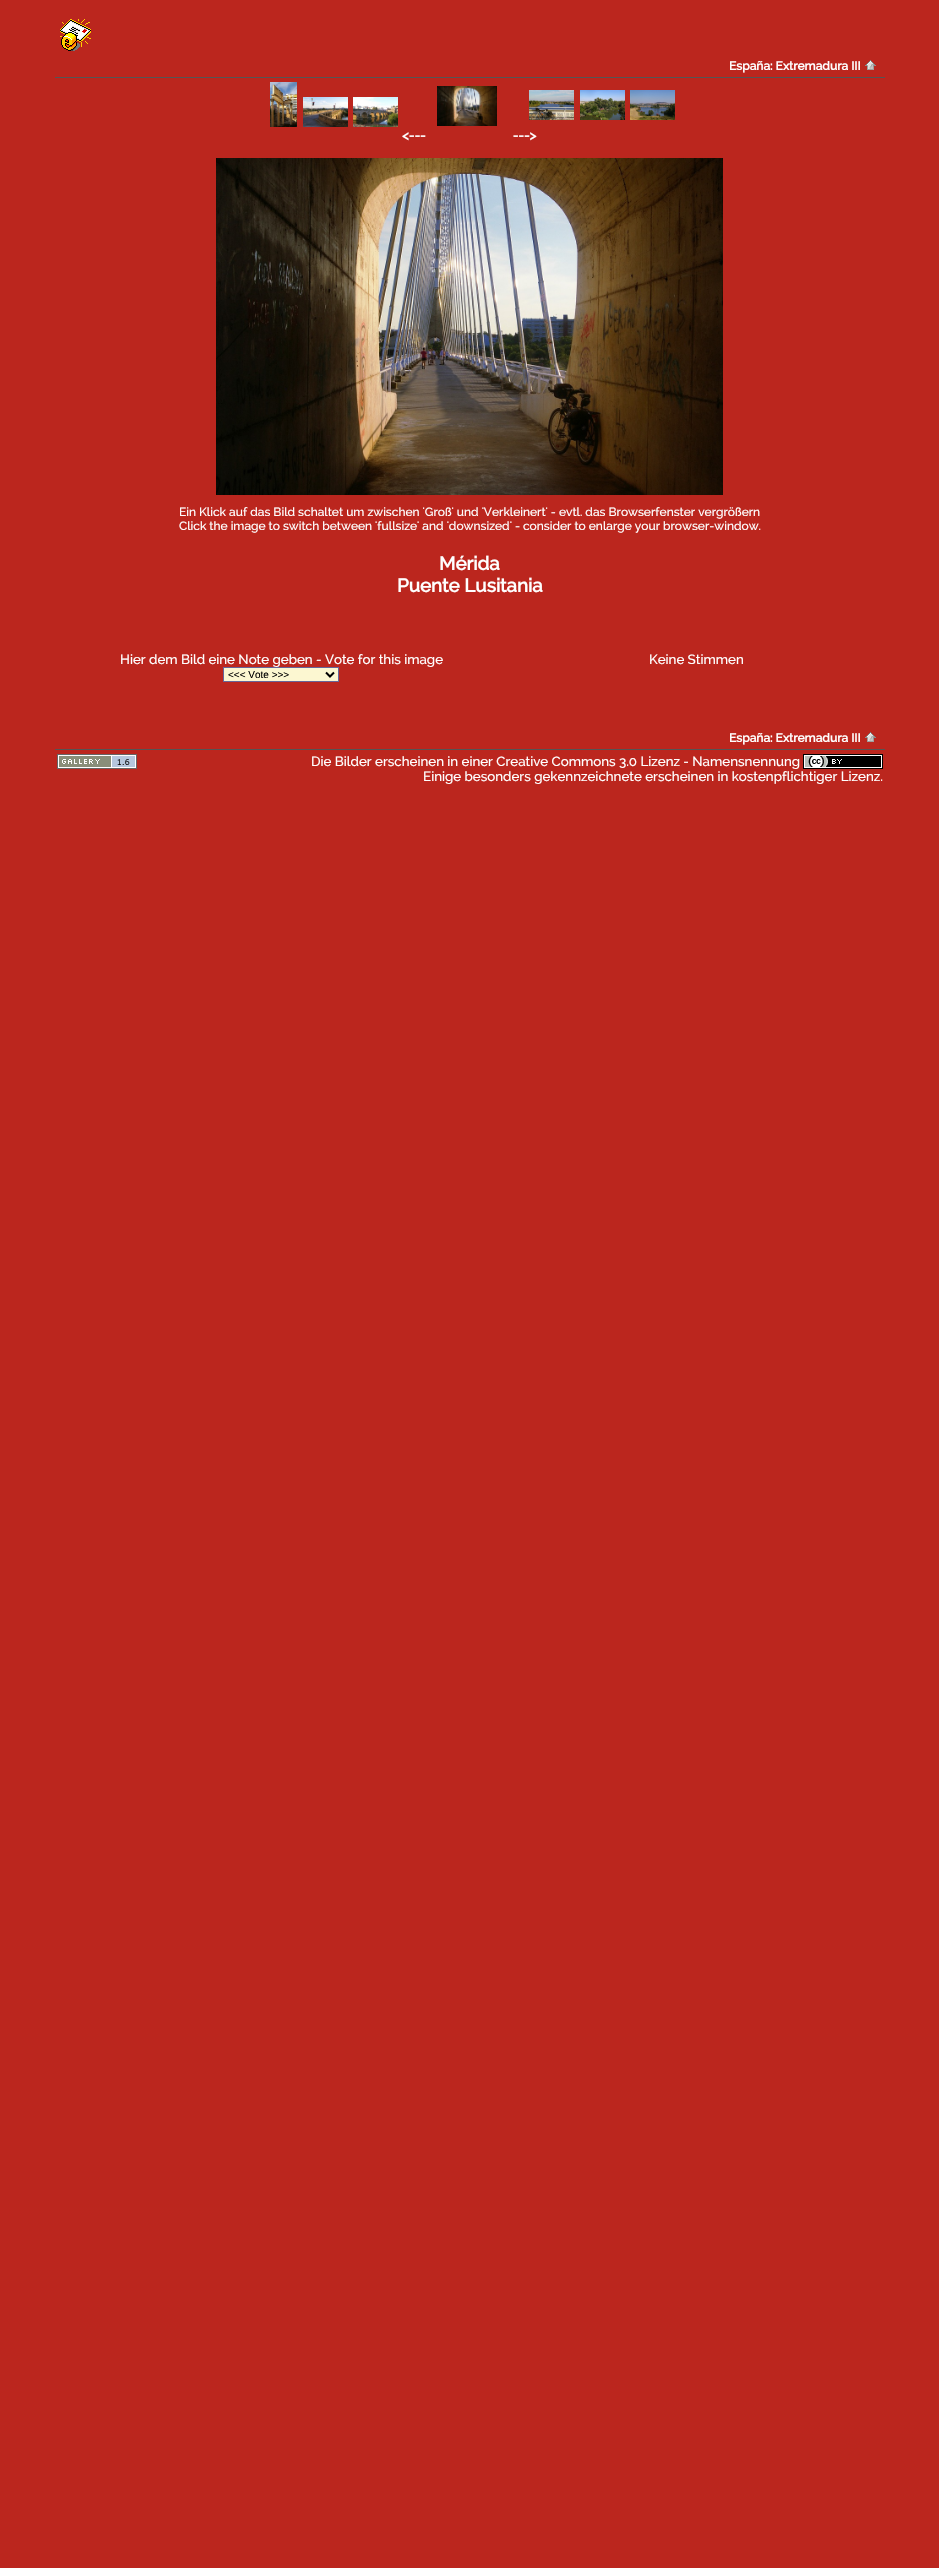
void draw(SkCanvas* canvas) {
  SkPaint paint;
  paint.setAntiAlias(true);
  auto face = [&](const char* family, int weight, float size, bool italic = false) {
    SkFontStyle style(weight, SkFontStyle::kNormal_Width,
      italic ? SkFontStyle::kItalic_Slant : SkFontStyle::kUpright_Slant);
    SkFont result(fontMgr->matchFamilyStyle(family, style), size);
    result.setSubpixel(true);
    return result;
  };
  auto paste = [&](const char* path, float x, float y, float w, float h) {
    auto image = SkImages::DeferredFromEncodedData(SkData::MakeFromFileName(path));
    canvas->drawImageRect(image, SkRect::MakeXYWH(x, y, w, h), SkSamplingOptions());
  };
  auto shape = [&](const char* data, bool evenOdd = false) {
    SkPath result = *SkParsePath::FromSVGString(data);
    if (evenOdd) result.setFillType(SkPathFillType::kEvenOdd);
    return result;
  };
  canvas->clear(0xffbb261e);
  paste("img/1.png", 60, 19, 31, 32);
  paint.setColor(0xff555555);
  canvas->drawRect(SkRect::MakeXYWH(55, 77, 830, 1), paint);
  paste("img/2.png", 865, 60, 11, 10);
  paste("img/3.png", 270, 82, 27, 45);
  paste("img/4.png", 303, 97, 45, 30);
  paste("img/5.png", 353, 97, 45, 30);
  paste("img/6.png", 437, 86, 60, 40);
  paste("img/7.png", 529, 90, 45, 30);
  paste("img/8.png", 580, 90, 45, 30);
  paste("img/9.png", 630, 90, 45, 30);
  paste("img/10.png", 216, 158, 507, 337);
  paint.setColor(0xfffcf7d1);
  canvas->drawRect(SkRect::MakeXYWH(223.5f, 667.5f, 115, 14), paint);
  paint.setStroke(true);
  paint.setStrokeWidth(1);
  paint.setColor(0xff666699);
  canvas->drawRect(SkRect::MakeXYWH(223.5f, 667.5f, 115, 14), paint);
  paint.setStrokeWidth(2);
  paint.setColor(0xff000000);
  canvas->drawPath(shape("M326 672.5L330 676.5L334 672.5"), paint);
  paint.setStroke(false);
  paint.setColor(0xff555555);
  canvas->drawRect(SkRect::MakeXYWH(55, 749, 830, 1), paint);
  paste("img/2.png", 865, 732, 11, 10);
  paste("img/11.png", 57, 754, 80, 15);
  paste("img/12.png", 803, 754, 80, 15);
  auto f0 = face("Raleway", 700, 12);
  paint.setColor(0xffffffff);
  canvas->drawString("España: Extremadura III", 729, 70, f0, paint);
  auto f1 = face("Raleway", 700, 13.35f);
  canvas->drawString("<---                          --->", 402, 140, f1, paint);
  auto f2 = face("Raleway", 500, 12);
  canvas->drawString("Ein Klick auf das Bild schaltet um zwischen 'Groß' und 'Verkleinert' - evtl. das Browserfenster vergrößern", 179, 516, f2, paint);
  canvas->drawString("Click the image to switch between 'fullsize' and 'downsized' - consider to enlarge your browser-window.", 179, 530, f2, paint);
  auto f3 = face("Raleway", 700, 18.75f);
  canvas->drawString("Mérida", 439, 570, f3, paint);
  canvas->drawString("Puente Lusitania", 397, 592, f3, paint);
  auto f4 = face("Raleway", 500, 13.35f);
  canvas->drawString("Hier dem Bild eine Note geben - Vote for this image", 120, 664, f4, paint);
  auto f5 = face("Liberation Sans", 400, 10);
  paint.setColor(0xff000000);
  canvas->drawString("<<< Vote >>>", 228, 678, f5, paint);
  paint.setColor(0xffffffff);
  canvas->drawString("Keine Stimmen", 649, 664, f4, paint);
  canvas->drawString("España: Extremadura III", 729, 742, f0, paint);
  canvas->drawString("Die Bilder erscheinen in einer Creative Commons 3.0 Lizenz - Namensnennung", 311, 766, f4, paint);
  canvas->drawString("Einige besonders gekennzeichnete erscheinen in kostenpflichtiger Lizenz.", 423, 781, f4, paint);
}
